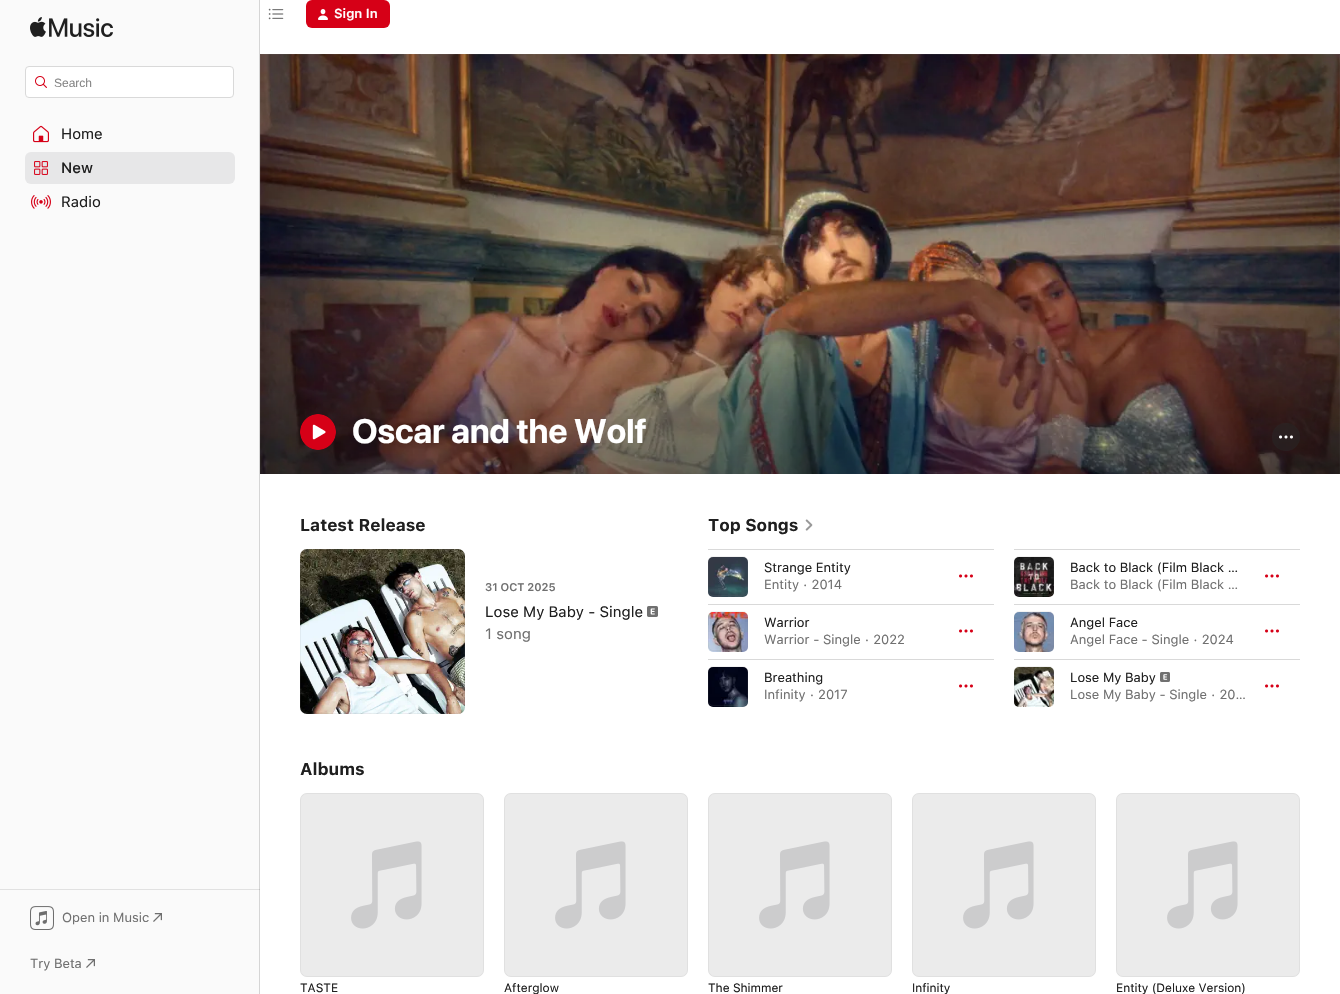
void draw(SkCanvas* canvas) {
  SkPaint paint;
  paint.setAntiAlias(true);
  auto face = [&](const char* family, int weight, float size, bool italic = false) {
    SkFontStyle style(weight, SkFontStyle::kNormal_Width,
      italic ? SkFontStyle::kItalic_Slant : SkFontStyle::kUpright_Slant);
    SkFont result(fontMgr->matchFamilyStyle(family, style), size);
    result.setSubpixel(true);
    return result;
  };
  auto paste = [&](const char* path, float x, float y, float w, float h) {
    auto image = SkImages::DeferredFromEncodedData(SkData::MakeFromFileName(path));
    canvas->drawImageRect(image, SkRect::MakeXYWH(x, y, w, h), SkSamplingOptions());
  };
  canvas->clear(0xffffffff);
  paste("img/1.png", 268, 8, 16, 12);
  paint.setColor(0xffd60017);
  canvas->drawRoundRect(SkRect::MakeXYWH(306, 0, 84, 28), 6, 6, paint);
  paste("img/2.png", 318, 9, 10, 11);
  {
    const struct { float x, y, w, h; SkColor color; } items[] = {
      {0, 0, 259, 994, 0xfffafafa},
      {0, 889, 260, 1, 0xffe1e1e1},
      {259, 0, 1, 994, 0xffd5d5d5},
      {259, 889, 1, 1, 0xffc0c0c0},
    };
    for (auto [x, y, w, h, color] : items) {
      paint.setColor(color);
      canvas->drawRect(SkRect::MakeXYWH(x, y, w, h), paint);
    }
  }
  paste("img/3.png", 30, 17, 83, 20);
  paint.setColor(0xffffffff);
  canvas->drawRoundRect(SkRect::MakeXYWH(25.5f, 66.5f, 208, 31), 3.5f, 3.5f, paint);
  paint.setStroke(true);
  paint.setStrokeWidth(1);
  paint.setColor(0xffd9d9d9);
  canvas->drawRoundRect(SkRect::MakeXYWH(25.5f, 66.5f, 208, 31), 3.5f, 3.5f, paint);
  paste("img/4.png", 35, 76, 12, 12);
  paste("img/5.png", 33, 125, 16, 18);
  paint.setStroke(false);
  paint.setColor(0xffe7e7e8);
  canvas->drawRoundRect(SkRect::MakeXYWH(25, 152, 210, 32), 6, 6, paint);
  paste("img/6.png", 34, 161, 14, 14);
  paste("img/7.png", 31, 195, 20, 14);
  paste("img/8.png", 30, 906, 24, 24);
  paste("img/9.png", 153, 913, 9, 9);
  paste("img/9.png", 86, 959, 9, 9);
  paste("img/10.png", 260, 54, 1080, 420);
  paste("img/14.png", 647, 606, 11, 11);
  paste("img/15.png", 805, 519, 8, 12);
  canvas->save();
  canvas->clipRect(SkRect::MakeXYWH(260, 54, 1080, 420));
  paint.setStroke(true);
  paint.setColor(0x1a808080);
  canvas->drawRect(SkRect::MakeXYWH(260.5f, 54.5f, 1079, 607), paint);
  canvas->restore();
  paint.setStroke(false);
  {
    const SkColor colors[] = {0x5c000000, 0x40000000, 0x00000000};
    const float stops[] = {0, 0.36f, 1};
    const SkPoint ends[] = {{800, 474}, {800, 324}};
    paint.setShader(SkGradientShader::MakeLinear(ends, colors, stops, 3, SkTileMode::kClamp));
    paint.setAlpha(255);
  }
  canvas->drawRect(SkRect::MakeXYWH(260, 332, 1080, 142), paint);
  paste("img/11.png", 300, 414, 36, 36);
  paint.setShader(nullptr);
  paint.setColor(0x80282828);
  canvas->drawCircle(1286, 437, 14, paint);
  paste("img/12.png", 1279, 435, 14, 4);
  paste("img/13.png", 300, 549, 165, 165);
  paint.setStroke(true);
  paint.setColor(0x1a808080);
  canvas->drawRoundRect(SkRect::MakeXYWH(300.5f, 549.5f, 164, 164), 6.5f, 6.5f, paint);
  paint.setStroke(false);
  paint.setColor(0xffd9d9d9);
  canvas->drawRect(SkRect::MakeXYWH(708, 549, 286, 1), paint);
  paste("img/16.png", 708, 557, 40, 40);
  paint.setStroke(true);
  paint.setColor(0x1a808080);
  canvas->drawRoundRect(SkRect::MakeXYWH(708.5f, 556.5f, 39, 39), 4.5f, 4.5f, paint);
  paste("img/17.png", 959, 574, 14, 4);
  paint.setStroke(false);
  paint.setColor(0xffd9d9d9);
  canvas->drawRect(SkRect::MakeXYWH(1014, 549, 286, 1), paint);
  paste("img/18.png", 1014, 557, 40, 40);
  paint.setStroke(true);
  paint.setColor(0x1a808080);
  canvas->drawRoundRect(SkRect::MakeXYWH(1014.5f, 556.5f, 39, 39), 4.5f, 4.5f, paint);
  paste("img/17.png", 1265, 574, 14, 4);
  paint.setStroke(false);
  paint.setColor(0xffd9d9d9);
  canvas->drawRect(SkRect::MakeXYWH(708, 604, 286, 1), paint);
  paste("img/19.png", 708, 612, 40, 40);
  paint.setStroke(true);
  paint.setColor(0x1a808080);
  canvas->drawRoundRect(SkRect::MakeXYWH(708.5f, 611.5f, 39, 39), 4.5f, 4.5f, paint);
  paste("img/17.png", 959, 629, 14, 4);
  paint.setStroke(false);
  paint.setColor(0xffd9d9d9);
  canvas->drawRect(SkRect::MakeXYWH(1014, 604, 286, 1), paint);
  paste("img/20.png", 1014, 612, 40, 40);
  paint.setStroke(true);
  paint.setColor(0x1a808080);
  canvas->drawRoundRect(SkRect::MakeXYWH(1014.5f, 611.5f, 39, 39), 4.5f, 4.5f, paint);
  paste("img/17.png", 1265, 629, 14, 4);
  paint.setStroke(false);
  paint.setColor(0xffd9d9d9);
  canvas->drawRect(SkRect::MakeXYWH(708, 659, 286, 1), paint);
  paste("img/21.png", 708, 667, 40, 40);
  paint.setStroke(true);
  paint.setColor(0x1a808080);
  canvas->drawRoundRect(SkRect::MakeXYWH(708.5f, 666.5f, 39, 39), 4.5f, 4.5f, paint);
  paste("img/17.png", 959, 684, 14, 4);
  paint.setStroke(false);
  paint.setColor(0xffd9d9d9);
  canvas->drawRect(SkRect::MakeXYWH(1014, 659, 286, 1), paint);
  paste("img/22.png", 1014, 667, 40, 40);
  paint.setStroke(true);
  paint.setColor(0x1a808080);
  canvas->drawRoundRect(SkRect::MakeXYWH(1014.5f, 666.5f, 39, 39), 4.5f, 4.5f, paint);
  paste("img/23.png", 1160, 672, 10, 10);
  paste("img/17.png", 1265, 684, 14, 4);
  paste("img/24.png", 300, 793, 184, 184);
  canvas->drawRoundRect(SkRect::MakeXYWH(300.5f, 793.5f, 183, 183), 6.5f, 6.5f, paint);
  paste("img/25.png", 504, 793, 184, 184);
  canvas->drawRoundRect(SkRect::MakeXYWH(504.5f, 793.5f, 183, 183), 6.5f, 6.5f, paint);
  paste("img/26.png", 708, 793, 184, 184);
  canvas->drawRoundRect(SkRect::MakeXYWH(708.5f, 793.5f, 183, 183), 6.5f, 6.5f, paint);
  paste("img/27.png", 912, 793, 184, 184);
  canvas->drawRoundRect(SkRect::MakeXYWH(912.5f, 793.5f, 183, 183), 6.5f, 6.5f, paint);
  paste("img/28.png", 1116, 793, 184, 184);
  canvas->drawRoundRect(SkRect::MakeXYWH(1116.5f, 793.5f, 183, 183), 6.5f, 6.5f, paint);
  auto f0 = face("SF", 600, 13);
  paint.setStroke(false);
  paint.setColor(0xffffffff);
  canvas->drawString("Sign In", 334, 18, f0, paint);
  auto f1 = face("Liberation Sans", 400, 12);
  paint.setColor(0xff858585);
  canvas->drawString("Search", 54, 87, f1, paint);
  auto f2 = face("SF", 400, 15);
  paint.setColor(0xff1f1f1f);
  canvas->drawString("Home", 61, 139, f2, paint);
  auto f3 = face("SF", 500, 15);
  canvas->drawString("New", 61, 173, f3, paint);
  canvas->drawString("Radio", 61, 207, f2, paint);
  auto f4 = face("SF", 400, 13);
  paint.setColor(0xff707070);
  canvas->drawString("Open in Music", 62, 922, f4, paint);
  canvas->drawString("Try Beta", 30, 968, f4, paint);
  auto f5 = face("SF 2", 700, 34);
  paint.setColor(0xffffffff);
  canvas->drawString("Oscar and the Wolf", 352, 443, f5, paint);
  auto f6 = face("SF", 700, 17);
  paint.setColor(0xff1f1f1f);
  canvas->drawString("Latest Release", 300, 531, f6, paint);
  auto f7 = face("SF", 600, 11);
  paint.setColor(0xff707070);
  canvas->drawString("31 OCT 2025", 485, 591, f7, paint);
  paint.setColor(0xff1f1f1f);
  canvas->drawString("Lose My Baby - Single", 485, 617, f2, paint);
  paint.setColor(0xff707070);
  canvas->drawString("1 song", 485, 639, f2, paint);
  paint.setColor(0xff1f1f1f);
  canvas->drawString("Top Songs", 708, 531, f6, paint);
  canvas->drawString("Strange Entity", 764, 572, f4, paint);
  paint.setColor(0xff707070);
  canvas->drawString("Entity · 2014", 764, 589, f4, paint);
  paint.setColor(0xff1f1f1f);
  canvas->drawString("Back to Black (Film Black …", 1070, 572, f4, paint);
  paint.setColor(0xff707070);
  canvas->drawString("Back to Black (Film Black …", 1070, 589, f4, paint);
  paint.setColor(0xff1f1f1f);
  canvas->drawString("Warrior", 764, 627, f4, paint);
  paint.setColor(0xff707070);
  canvas->drawString("Warrior - Single · 2022", 764, 644, f4, paint);
  paint.setColor(0xff1f1f1f);
  canvas->drawString("Angel Face", 1070, 627, f4, paint);
  paint.setColor(0xff707070);
  canvas->drawString("Angel Face - Single · 2024", 1070, 644, f4, paint);
  paint.setColor(0xff1f1f1f);
  canvas->drawString("Breathing", 764, 682, f4, paint);
  paint.setColor(0xff707070);
  canvas->drawString("Infinity · 2017", 764, 699, f4, paint);
  paint.setColor(0xff1f1f1f);
  canvas->drawString("Lose My Baby", 1070, 682, f4, paint);
  paint.setColor(0xff707070);
  canvas->drawString("Lose My Baby - Single · 20…", 1070, 699, f4, paint);
  paint.setColor(0xff1f1f1f);
  canvas->drawString("Albums", 300, 775, f6, paint);
  auto f8 = face("SF", 400, 12);
  {
    const struct { const char* s; float x, y; } items[] = {
      {"TASTE", 300, 992},
      {"Afterglow", 504, 992},
      {"The Shimmer", 708, 992},
      {"Infinity", 912, 992},
      {"Entity (Deluxe Version)", 1116, 992},
    };
    for (auto [s, x, y] : items) {
      canvas->drawString(s, x, y, f8, paint);
    }
  }
}
